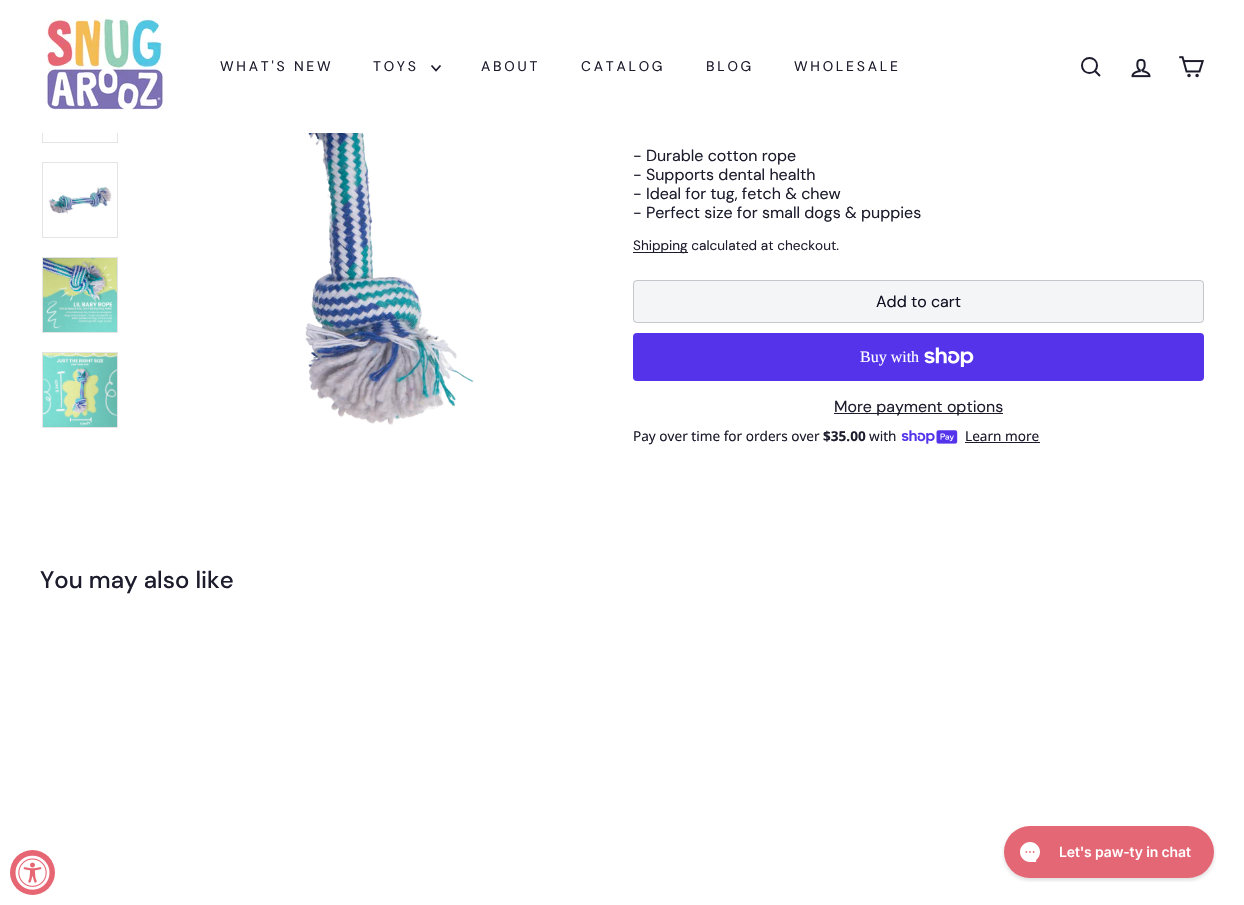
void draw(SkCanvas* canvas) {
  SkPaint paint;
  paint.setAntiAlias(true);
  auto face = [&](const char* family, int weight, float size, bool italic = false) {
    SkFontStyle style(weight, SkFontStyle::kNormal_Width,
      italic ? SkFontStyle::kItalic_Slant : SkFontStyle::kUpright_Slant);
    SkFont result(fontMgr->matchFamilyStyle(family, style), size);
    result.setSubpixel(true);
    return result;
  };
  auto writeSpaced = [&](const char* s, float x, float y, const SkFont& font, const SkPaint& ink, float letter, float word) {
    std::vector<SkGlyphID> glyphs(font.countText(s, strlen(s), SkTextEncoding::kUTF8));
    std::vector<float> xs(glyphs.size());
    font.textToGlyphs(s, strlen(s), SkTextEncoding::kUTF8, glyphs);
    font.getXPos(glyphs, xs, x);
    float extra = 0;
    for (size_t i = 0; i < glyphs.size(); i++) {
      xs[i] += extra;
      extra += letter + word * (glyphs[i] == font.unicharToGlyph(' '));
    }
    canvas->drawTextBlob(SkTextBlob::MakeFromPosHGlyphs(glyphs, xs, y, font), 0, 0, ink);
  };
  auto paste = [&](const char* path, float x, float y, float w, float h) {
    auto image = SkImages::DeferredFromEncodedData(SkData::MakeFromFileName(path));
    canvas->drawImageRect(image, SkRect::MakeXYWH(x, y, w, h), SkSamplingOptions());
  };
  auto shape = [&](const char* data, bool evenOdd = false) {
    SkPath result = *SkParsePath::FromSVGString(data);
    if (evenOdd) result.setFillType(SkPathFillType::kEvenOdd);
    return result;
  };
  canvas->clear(0xffffffff);
  paint.setStroke(true);
  paint.setStrokeWidth(1);
  paint.setColor(0xffe4e4e6);
  canvas->drawRect(SkRect::MakeXYWH(42.5f, 67.5f, 75, 75), paint);
  paint.setStroke(false);
  paint.setColor(0xffffffff);
  canvas->drawRect(SkRect::MakeXYWH(42, 67, 76, 66), paint);
  paste("img/1.png", 46, 15, 122, 96);
  paint.setStroke(true);
  paint.setStrokeWidth(1.8f);
  paint.setColor(0xff1d1c2d);
  canvas->drawPath(shape("M431.5 65.5L436 70.5L440.5 65.5"), paint);
  paint.setStrokeWidth(2);
  canvas->drawPath(shape("M1097 65.5C1097 75.5 1082 75.5 1082 65.5C1082 55.5 1097 55.5 1097 65.5M1100 76L1095 71"), paint);
  paste("img/2.png", 1131, 58, 20, 20);
  paste("img/3.png", 1179, 56, 25, 22);
  paint.setStrokeWidth(1);
  paint.setColor(0xffe4e4e6);
  canvas->drawRect(SkRect::MakeXYWH(42.5f, 162.5f, 75, 75), paint);
  paste("img/4.png", 48, 186, 64, 28);
  canvas->drawRect(SkRect::MakeXYWH(42.5f, 257.5f, 75, 75), paint);
  paste("img/5.png", 43, 258, 74, 74);
  canvas->drawRect(SkRect::MakeXYWH(42.5f, 352.5f, 75, 75), paint);
  paste("img/6.png", 43, 353, 74, 74);
  paste("img/7.png", 305, 133, 169, 292);
  paint.setStroke(false);
  paint.setColor(0xff1d1c2d);
  canvas->drawRect(SkRect::MakeXYWH(633, 252, 55, 1), paint);
  paint.setColor(0xfff4f5f7);
  canvas->drawRoundRect(SkRect::MakeXYWH(633, 280, 571, 43), 4, 4, paint);
  paint.setStroke(true);
  paint.setColor(0x33101123);
  canvas->drawRoundRect(SkRect::MakeXYWH(633.5f, 280.5f, 570, 42), 3.5f, 3.5f, paint);
  paint.setStroke(false);
  paint.setColor(0xff5433eb);
  canvas->drawRoundRect(SkRect::MakeXYWH(633, 333, 571, 48), 4, 4, paint);
  paste("img/8.png", 924, 347, 50, 20);
  paint.setColor(0xff1d1c2d);
  canvas->drawRect(SkRect::MakeXYWH(834, 413, 169, 1), paint);
  paste("img/9.png", 901, 430, 57, 14);
  canvas->drawRect(SkRect::MakeXYWH(965, 442, 75, 1), paint);
  paint.setColor(0xffe66673);
  canvas->drawCircle(32.5f, 872.5f, 22.5f, paint);
  paste("img/10.png", 15, 855, 35, 35);
  paste("img/11.png", 1002, 826, 214, 56);
  auto f0 = face("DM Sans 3", 400, 14);
  paint.setColor(0xff1d1c2d);
  {
    const struct { const char* s; float x, y; } items[] = {
      {"WHAT'S NEW", 220, 71},
      {"TOYS", 373, 71},
      {"ABOUT", 481, 71},
      {"CATALOG", 581, 71},
      {"BLOG", 706, 71},
      {"WHOLESALE", 794, 71},
    };
    for (auto [s, x, y] : items) {
      writeSpaced(s, x, y, f0, paint, 2.75f, 0);
    }
  }
  auto f1 = face("DM Sans", 400, 16);
  {
    const struct { const char* s; float x, y; } items[] = {
      {"- Durable cotton rope", 633, 161},
      {"- Supports dental health", 633, 180},
      {"- Ideal for tug, fetch & chew", 633, 199},
      {"- Perfect size for small dogs & puppies", 633, 218},
    };
    for (auto [s, x, y] : items) {
      canvas->drawString(s, x, y, f1, paint);
    }
  }
  auto f2 = face("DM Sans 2", 400, 13.6f);
  canvas->drawString("Shipping calculated at checkout.", 633, 250, f2, paint);
  paint.setColor(0xff101123);
  canvas->drawString("Add to cart", 876, 307, f1, paint);
  auto f3 = face("Liberation Serif", 400, 16);
  paint.setColor(0xffffffff);
  canvas->drawString("Buy with", 860, 362, f3, paint);
  paint.setColor(0xff1d1c2d);
  canvas->drawString("More payment options", 834, 412, f1, paint);
  auto f4 = face("Noto Sans", 400, 13.6f);
  canvas->drawString("Pay over time for orders over", 633, 441, f4, paint);
  auto f5 = face("Noto Sans", 700, 13.6f);
  canvas->drawString("$35.00", 823, 441, f5, paint);
  canvas->drawString("with", 869, 441, f4, paint);
  canvas->drawString("Learn more", 965, 441, f4, paint);
  auto f6 = face("DM Sans", 500, 24);
  canvas->drawString("You may also like", 40, 588, f6, paint);
}
